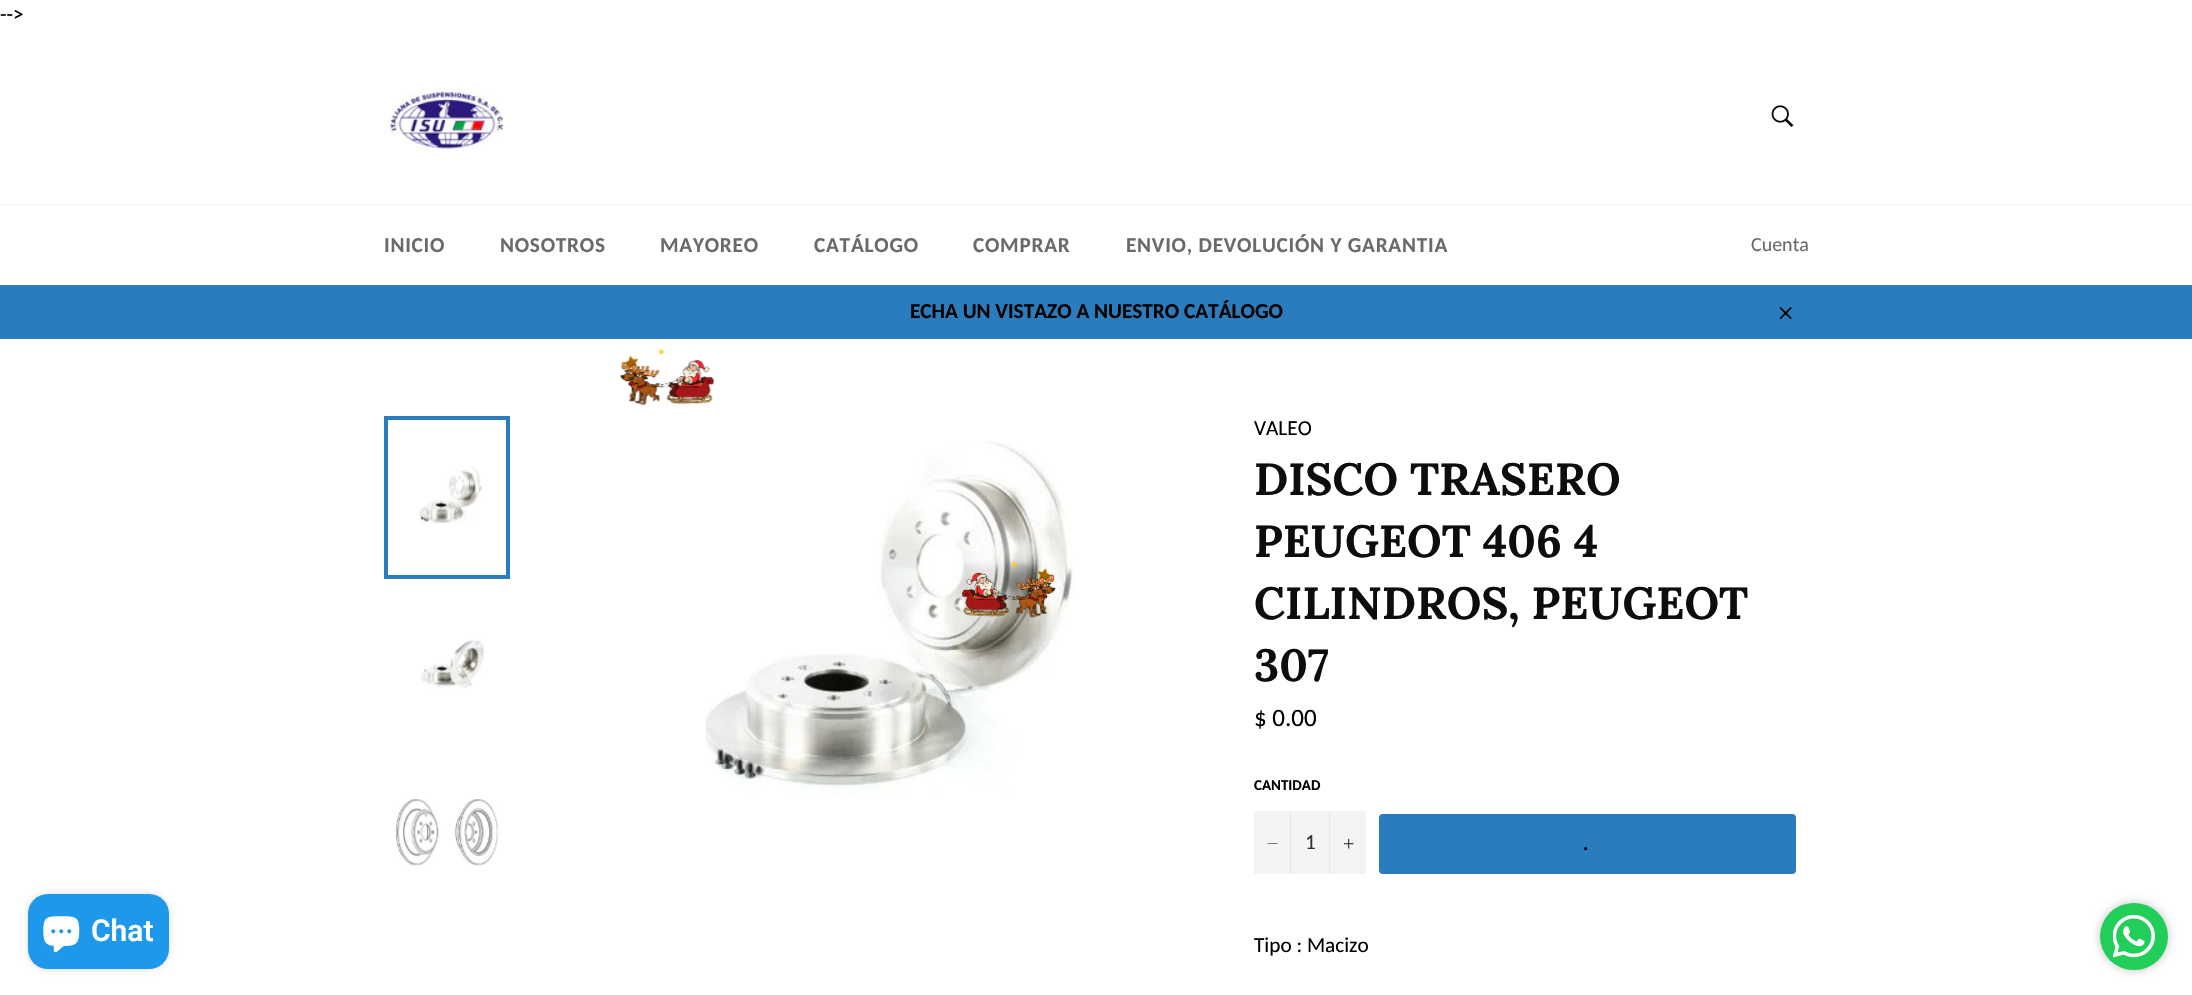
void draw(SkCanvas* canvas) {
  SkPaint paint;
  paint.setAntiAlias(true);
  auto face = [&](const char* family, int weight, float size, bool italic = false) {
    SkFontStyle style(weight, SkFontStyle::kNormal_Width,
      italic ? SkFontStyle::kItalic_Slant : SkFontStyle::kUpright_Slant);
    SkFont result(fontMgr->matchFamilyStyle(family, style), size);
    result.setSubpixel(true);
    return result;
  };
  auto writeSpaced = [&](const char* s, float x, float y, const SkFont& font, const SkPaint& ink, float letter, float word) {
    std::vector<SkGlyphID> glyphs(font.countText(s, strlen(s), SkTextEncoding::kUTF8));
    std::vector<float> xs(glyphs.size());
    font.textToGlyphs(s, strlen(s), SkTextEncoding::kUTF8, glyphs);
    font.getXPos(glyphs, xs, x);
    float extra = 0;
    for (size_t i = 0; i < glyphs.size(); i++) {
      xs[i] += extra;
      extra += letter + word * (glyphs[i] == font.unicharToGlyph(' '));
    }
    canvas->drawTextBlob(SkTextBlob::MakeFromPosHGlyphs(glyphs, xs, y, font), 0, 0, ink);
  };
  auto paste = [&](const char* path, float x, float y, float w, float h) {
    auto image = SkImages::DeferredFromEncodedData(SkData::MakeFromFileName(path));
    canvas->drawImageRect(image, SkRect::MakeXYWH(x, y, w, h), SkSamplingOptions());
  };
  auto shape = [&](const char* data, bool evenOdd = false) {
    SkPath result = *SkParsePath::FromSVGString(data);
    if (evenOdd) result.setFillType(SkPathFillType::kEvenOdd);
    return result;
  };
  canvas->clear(0xffffffff);
  paste("img/1.png", 384, 86, 120, 65);
  paste("img/2.png", 1771, 105, 23, 22);
  paint.setColor(0xfff2f2f2);
  canvas->drawRect(SkRect::MakeXYWH(0, 204, 2192, 1), paint);
  paint.setColor(0xff2b7cbc);
  canvas->drawRect(SkRect::MakeXYWH(0, 285, 2192, 54), paint);
  paste("img/3.png", 1779, 307, 13, 13);
  paste("img/4.png", 620, 348, 94, 58);
  paste("img/9.png", 705, 440, 370, 354);
  paste("img/5.png", 962, 561, 94, 57);
  paste("img/6.png", 419, 465, 63, 59);
  paint.setStroke(true);
  paint.setStrokeWidth(4);
  canvas->drawRect(SkRect::MakeXYWH(386, 418, 122, 159), paint);
  paste("img/7.png", 421, 639, 64, 50);
  paste("img/8.png", 396, 799, 103, 67);
  paint.setStroke(false);
  paint.setColor(0xfff4f4f4);
  canvas->drawRect(SkRect::MakeXYWH(1254, 811, 112, 63), paint);
  paint.setColor(0xffe7e7e7);
  canvas->drawRect(SkRect::MakeXYWH(1290, 811, 1, 63), paint);
  paint.setColor(0xff000000);
  canvas->drawPath(shape("M1277.5 843.5V844H1267.5V843.5Z", true), paint);
  paint.setColor(0xffe7e7e7);
  canvas->drawRect(SkRect::MakeXYWH(1329, 811, 1, 63), paint);
  paste("img/10.png", 1344, 839, 10, 10);
  paint.setColor(0xff2b7cbc);
  canvas->drawRoundRect(SkRect::MakeXYWH(1379, 814, 417, 60), 4, 4, paint);
  paint.setColor(0x26000000);
  paint.setMaskFilter(SkMaskFilter::MakeBlur(kNormal_SkBlurStyle, 3));
  canvas->drawRoundRect(SkRect::MakeXYWH(28, 894, 141, 75), 20, 20, paint);
  paint.setMaskFilter(nullptr);
  paint.setColor(0xff1e98ea);
  canvas->drawRoundRect(SkRect::MakeXYWH(28, 894, 141, 75), 20, 20, paint);
  paste("img/11.png", 43, 916, 37, 37);
  paint.setColor(0xffc2c2c2);
  paint.setMaskFilter(SkMaskFilter::MakeBlur(kNormal_SkBlurStyle, 5));
  canvas->drawRoundRect(SkRect::MakeXYWH(2100, 903, 68, 67), 33.5f, 33.5f, paint);
  paint.setMaskFilter(nullptr);
  paint.setColor(0xff22ce5a);
  canvas->drawRoundRect(SkRect::MakeXYWH(2100, 903, 68, 67), 33.5f, 33.5f, paint);
  paste("img/12.png", 2113, 915, 42, 43);
  auto f0 = face("Carlito", 400, 21.25f);
  paint.setColor(0xff000000);
  canvas->drawString("-->", 0, 21, f0, paint);
  auto f1 = face("Carlito", 700, 21.25f);
  paint.setColor(0xff6a6a6a);
  {
    const struct { const char* s; float x, y; } items[] = {
      {"INICIO", 384, 252},
      {"NOSOTROS", 500, 252},
      {"MAYOREO", 660, 252},
      {"CATÁLOGO", 814, 252},
      {"COMPRAR", 973, 252},
      {"ENVIO, DEVOLUCIÓN Y GARANTIA", 1126, 252},
    };
    for (auto [s, x, y] : items) {
      writeSpaced(s, x, y, f1, paint, 0.75f, 0);
    }
  }
  auto f2 = face("Carlito", 400, 20);
  canvas->drawString("Cuenta", 1751, 251, f2, paint);
  paint.setColor(0xff000000);
  canvas->drawString("ECHA UN VISTAZO A NUESTRO CATÁLOGO", 910, 318, f1, paint);
  canvas->drawString("VALEO", 1254, 435, f0, paint);
  auto f3 = face("Lora", 700, 45);
  paint.setColor(0xff0e0d0d);
  {
    const struct { const char* s; float x, y; } items[] = {
      {"DISCO TRASERO", 1254, 495},
      {"PEUGEOT 406 4", 1254, 557},
      {"CILINDROS, PEUGEOT", 1254, 619},
      {"307", 1254, 681},
    };
    for (auto [s, x, y] : items) {
      canvas->drawString(s, x, y, f3, paint);
    }
  }
  auto f4 = face("Carlito", 400, 25);
  paint.setColor(0xff000000);
  canvas->drawString("$ 0.00", 1254, 726, f4, paint);
  auto f5 = face("Carlito", 700, 15);
  canvas->drawString("CANTIDAD", 1254, 790, f5, paint);
  paint.setColor(0xff333333);
  canvas->drawString("1", 1305, 849, f0, paint);
  auto f6 = face("Carlito", 700, 20);
  paint.setColor(0xff000000);
  writeSpaced(".", 1583, 850, f6, paint, 3, 0);
  canvas->drawString("Tipo : Macizo", 1254, 952, f0, paint);
  auto f7 = face("Roboto", 600, 30);
  paint.setColor(0xffffffff);
  canvas->drawString("Chat", 91, 941, f7, paint);
}
